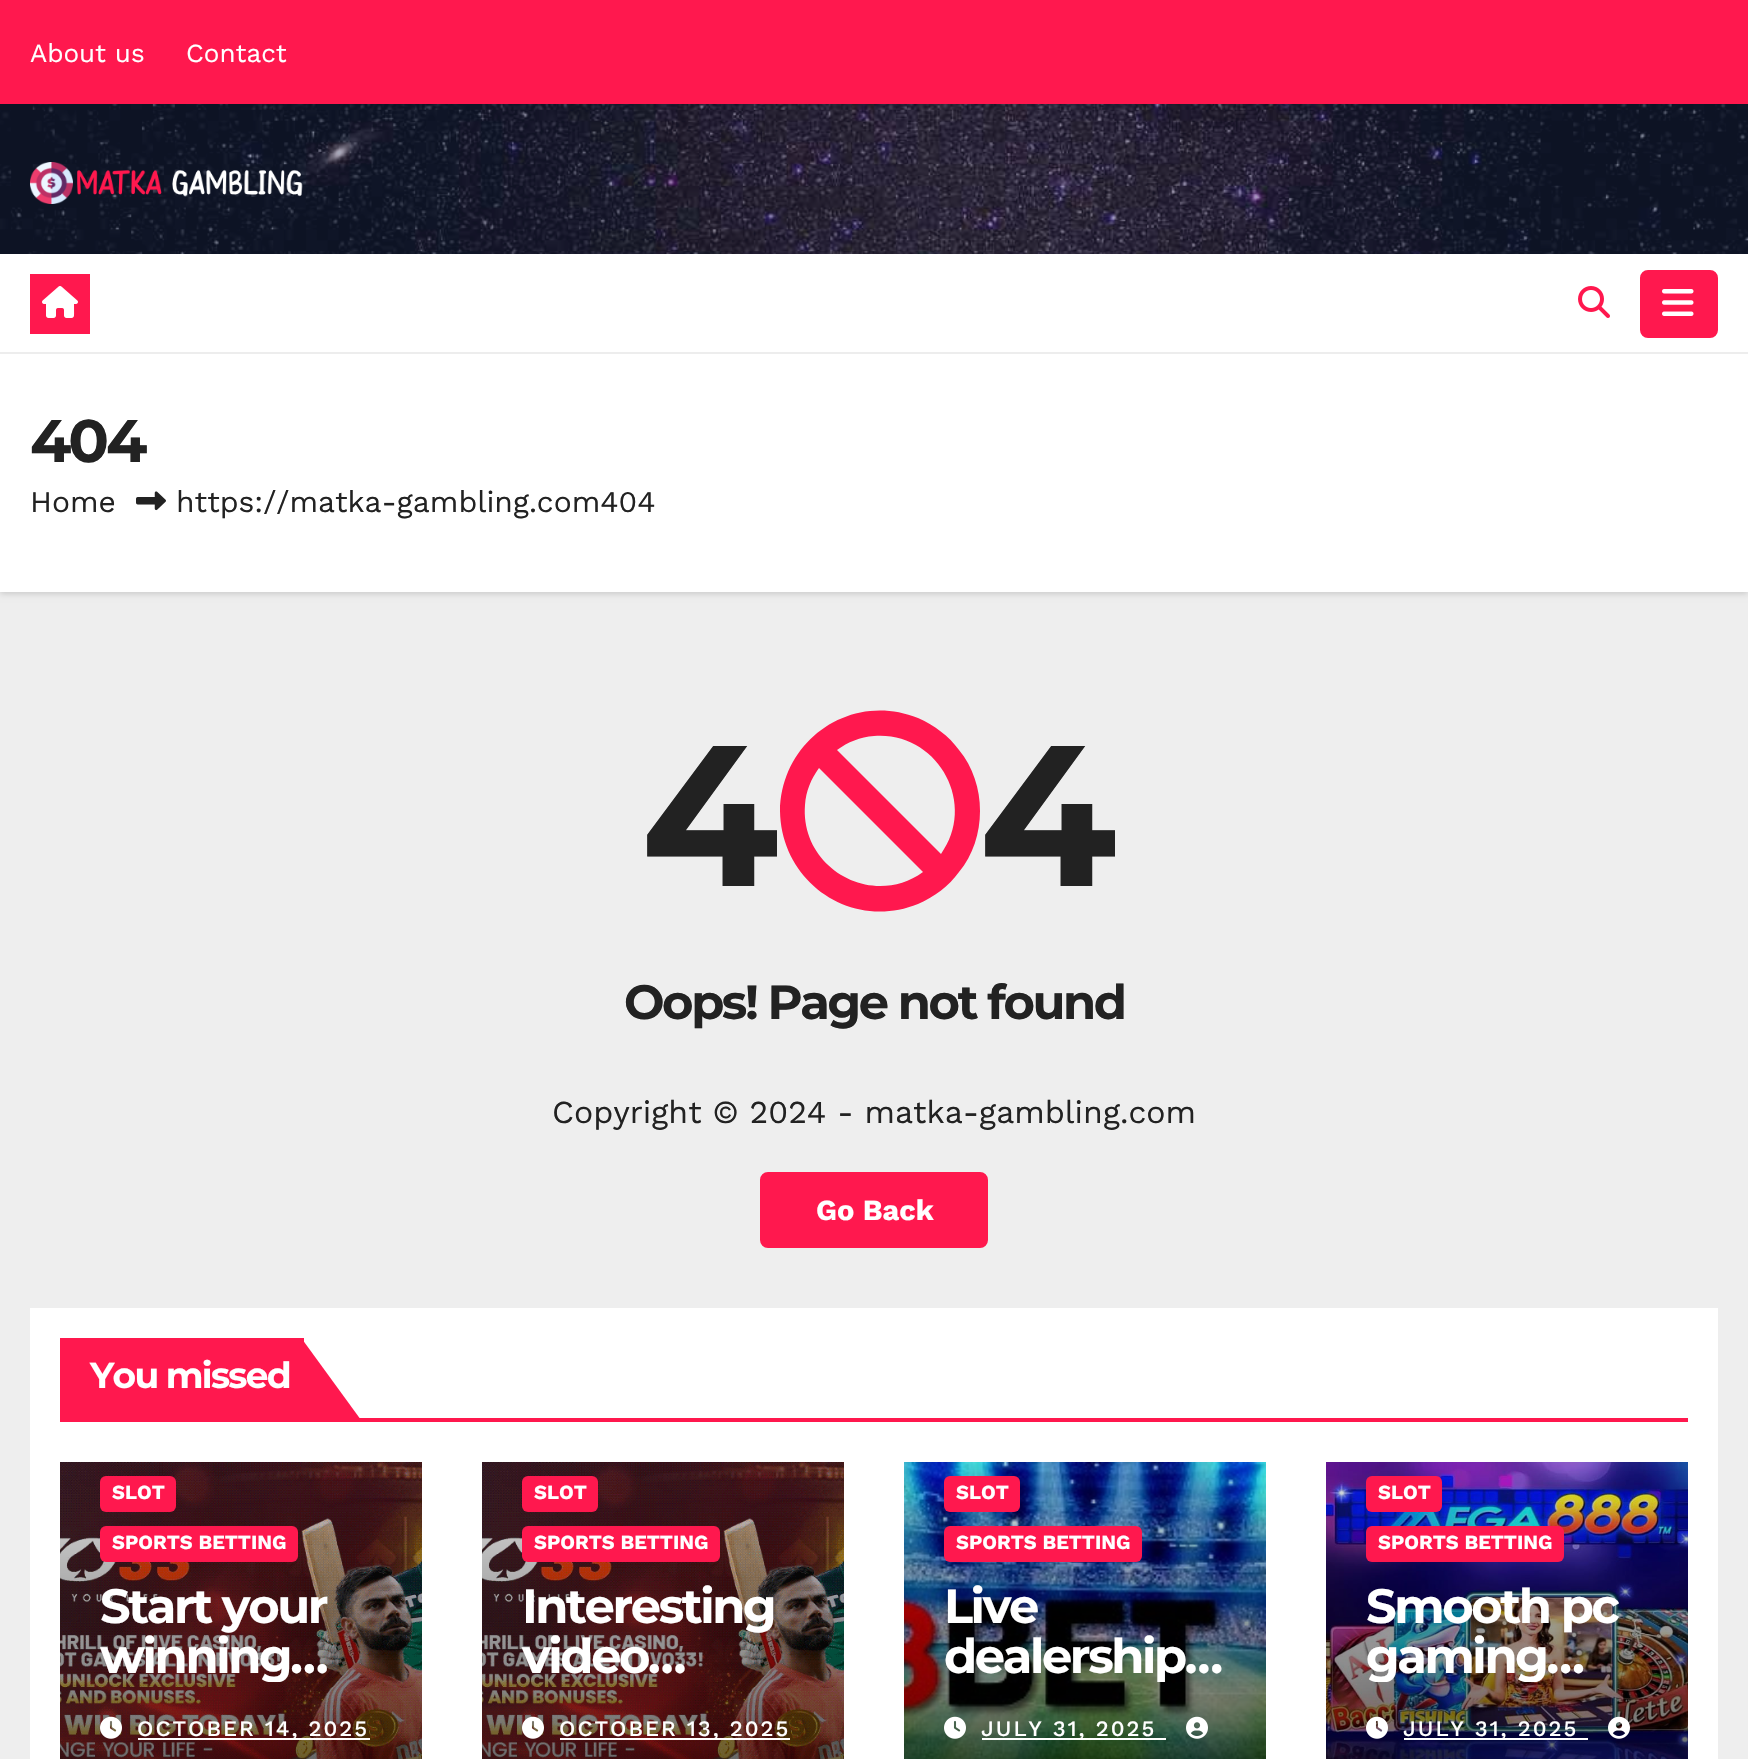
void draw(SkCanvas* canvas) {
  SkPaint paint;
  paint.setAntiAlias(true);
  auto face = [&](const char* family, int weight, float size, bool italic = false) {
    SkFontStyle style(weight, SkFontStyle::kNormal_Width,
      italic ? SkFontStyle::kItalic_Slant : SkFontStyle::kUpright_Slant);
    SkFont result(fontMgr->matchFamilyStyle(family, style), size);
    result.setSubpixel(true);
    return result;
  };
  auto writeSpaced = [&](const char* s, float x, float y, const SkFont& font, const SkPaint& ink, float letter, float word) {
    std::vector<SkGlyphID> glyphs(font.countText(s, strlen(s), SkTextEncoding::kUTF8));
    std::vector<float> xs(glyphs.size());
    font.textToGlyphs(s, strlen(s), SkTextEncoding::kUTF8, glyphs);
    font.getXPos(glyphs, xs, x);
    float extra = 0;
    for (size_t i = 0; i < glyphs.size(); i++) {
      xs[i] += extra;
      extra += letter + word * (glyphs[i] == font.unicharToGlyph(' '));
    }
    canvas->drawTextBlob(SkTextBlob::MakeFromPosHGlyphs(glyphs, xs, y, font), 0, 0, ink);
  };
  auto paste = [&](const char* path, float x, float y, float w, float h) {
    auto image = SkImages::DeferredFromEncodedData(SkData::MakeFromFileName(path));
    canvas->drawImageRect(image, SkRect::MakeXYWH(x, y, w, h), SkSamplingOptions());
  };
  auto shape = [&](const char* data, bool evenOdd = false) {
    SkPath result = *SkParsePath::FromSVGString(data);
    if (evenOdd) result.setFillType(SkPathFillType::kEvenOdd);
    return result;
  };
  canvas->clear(0xffeeeeee);
  paint.setColor(0xffff184e);
  canvas->drawRect(SkRect::MakeXYWH(0, 0, 1748, 104), paint);
  paste("img/1.png", 0, 104, 1748, 150);
  paste("img/2.png", 30, 162, 273, 42);
  paint.setColor(0x26000000);
  paint.setMaskFilter(SkMaskFilter::MakeBlur(kNormal_SkBlurStyle, 3));
  canvas->drawRect(SkRect::MakeXYWH(0, 354, 1748, 240), paint);
  paint.setMaskFilter(nullptr);
  {
    const struct { float x, y, w, h; SkColor color; } items[] = {
      {0, 352, 1748, 2, 0xffededed},
      {0, 254, 1748, 98, 0xffffffff},
      {30, 274, 60, 60, 0xffff184e},
    };
    for (auto [x, y, w, h, color] : items) {
      paint.setColor(color);
      canvas->drawRect(SkRect::MakeXYWH(x, y, w, h), paint);
    }
  }
  paste("img/3.png", 42, 286, 36, 32);
  paste("img/4.png", 1578, 286, 32, 32);
  canvas->drawRoundRect(SkRect::MakeXYWH(1641, 271, 76, 66), 7, 7, paint);
  paint.setStroke(true);
  paint.setStrokeWidth(2);
  canvas->drawRoundRect(SkRect::MakeXYWH(1641, 271, 76, 66), 7, 7, paint);
  paste("img/5.png", 1662, 289, 32, 27);
  paint.setStroke(false);
  paint.setColor(0xffffffff);
  canvas->drawRect(SkRect::MakeXYWH(0, 354, 1748, 238), paint);
  paste("img/6.png", 136, 491, 30, 20);
  paint.setColor(0xffff184e);
  canvas->drawPath(shape("M923 872L819 768C811 779 806 791 805 805C800 868 872 909 923 872ZM941 854C978 803 937 731 874 736C860 737 848 742 837 750ZM780 811C781 740 851 691 918 718C934 725 949 736 959 750C973 767 980 789 980 811C980 833 973 855 959 872C949 886 934 897 918 904C851 931 781 882 780 811Z"), paint);
  canvas->drawRoundRect(SkRect::MakeXYWH(762, 1174, 224, 72), 6, 6, paint);
  paint.setStroke(true);
  paint.setStrokeWidth(4);
  canvas->drawRoundRect(SkRect::MakeXYWH(762, 1174, 224, 72), 6, 6, paint);
  paint.setStroke(false);
  {
    const struct { float x, y, w, h; SkColor color; } items[] = {
      {30, 1308, 1688, 451, 0xffffffff},
      {60, 1418, 1628, 4, 0xffff184e},
      {60, 1338, 244, 80, 0xffff184e},
    };
    for (auto [x, y, w, h, color] : items) {
      paint.setColor(color);
      canvas->drawRect(SkRect::MakeXYWH(x, y, w, h), paint);
    }
  }
  canvas->drawPath(shape("M302 1339V1420H361Z"), paint);
  paste("img/7.png", 60, 1462, 362, 297);
  canvas->drawRoundRect(SkRect::MakeXYWH(100, 1476, 76, 36), 6, 6, paint);
  canvas->drawRoundRect(SkRect::MakeXYWH(100, 1526, 198, 36), 6, 6, paint);
  paste("img/8.png", 100, 1716, 22, 23);
  paint.setColor(0xffffffff);
  canvas->drawRect(SkRect::MakeXYWH(138, 1738, 232, 2), paint);
  paste("img/9.png", 482, 1462, 362, 297);
  paint.setColor(0xffff184e);
  canvas->drawRoundRect(SkRect::MakeXYWH(522, 1476, 76, 36), 6, 6, paint);
  canvas->drawRoundRect(SkRect::MakeXYWH(522, 1526, 198, 36), 6, 6, paint);
  paste("img/10.png", 522, 1716, 22, 23);
  paint.setColor(0xffffffff);
  canvas->drawRect(SkRect::MakeXYWH(560, 1738, 230, 2), paint);
  paste("img/11.png", 904, 1462, 362, 297);
  paint.setColor(0xffff184e);
  canvas->drawRoundRect(SkRect::MakeXYWH(944, 1476, 76, 36), 6, 6, paint);
  canvas->drawRoundRect(SkRect::MakeXYWH(944, 1526, 198, 36), 6, 6, paint);
  paste("img/12.png", 944, 1716, 22, 23);
  paint.setColor(0xffffffff);
  canvas->drawRect(SkRect::MakeXYWH(982, 1738, 184, 2), paint);
  paste("img/13.png", 1186, 1716, 22, 23);
  paste("img/14.png", 1326, 1462, 362, 297);
  paint.setColor(0xffff184e);
  canvas->drawRoundRect(SkRect::MakeXYWH(1366, 1476, 76, 36), 6, 6, paint);
  canvas->drawRoundRect(SkRect::MakeXYWH(1366, 1526, 198, 36), 6, 6, paint);
  paste("img/15.png", 1366, 1716, 22, 23);
  paint.setColor(0xffffffff);
  canvas->drawRect(SkRect::MakeXYWH(1404, 1738, 184, 2), paint);
  paste("img/16.png", 1608, 1716, 22, 23);
  auto f0 = face("Work Sans", 400, 26);
  canvas->drawString("About us", 30, 62, f0, paint);
  canvas->drawString("Contact", 186, 62, f0, paint);
  auto f1 = face("Montserrat", 700, 60);
  paint.setColor(0xff222222);
  writeSpaced("404", 30, 462, f1, paint, -3, 0);
  auto f2 = face("Work Sans", 400, 30);
  canvas->drawString("Home", 30, 512, f2, paint);
  canvas->drawString("https://matka-gambling.com404", 176, 512, f2, paint);
  auto f3 = face("Montserrat", 700, 200);
  writeSpaced("4", 641, 886, f3, paint, -10, 0);
  writeSpaced("4", 979, 886, f3, paint, -10, 0);
  auto f4 = face("Montserrat", 700, 48);
  writeSpaced("Oops! Page not found", 624, 1019, f4, paint, -2.4f, 0);
  auto f5 = face("Work Sans", 400, 32);
  canvas->drawString("Copyright © 2024 - matka-gambling.com", 552, 1123, f5, paint);
  auto f6 = face("Work Sans", 700, 29);
  paint.setColor(0xffffffff);
  canvas->drawString("Go Back", 816, 1220, f6, paint);
  auto f7 = face("Montserrat", 700, 36);
  writeSpaced("You missed", 90, 1388, f7, paint, -1.75f, 0);
  auto f8 = face("Work Sans", 700, 20);
  canvas->drawString("SLOT", 112, 1499, f8, paint);
  canvas->drawString("SPORTS BETTING", 112, 1549, f8, paint);
  writeSpaced("Start your", 100, 1623, f4, paint, -2.4f, 0);
  canvas->save();
  canvas->clipRect(SkRect::MakeXYWH(100, 1582, 282, 100));
  writeSpaced("winning…", 100, 1673, f4, paint, -2.4f, 0);
  canvas->restore();
  auto f9 = face("Work Sans", 500, 22);
  writeSpaced("OCTOBER 14, 2025", 137, 1736, f9, paint, 2, 0);
  canvas->drawString("SLOT", 534, 1499, f8, paint);
  canvas->drawString("SPORTS BETTING", 534, 1549, f8, paint);
  writeSpaced("Interesting", 522, 1623, f4, paint, -2.4f, 0);
  writeSpaced("video…", 522, 1673, f4, paint, -2.4f, 0);
  writeSpaced("OCTOBER 13, 2025", 559, 1736, f9, paint, 2, 0);
  canvas->drawString("SLOT", 956, 1499, f8, paint);
  canvas->drawString("SPORTS BETTING", 956, 1549, f8, paint);
  writeSpaced("Live", 944, 1623, f4, paint, -2.4f, 0);
  canvas->save();
  canvas->clipRect(SkRect::MakeXYWH(944, 1582, 282, 100));
  writeSpaced("dealership…", 944, 1673, f4, paint, -2.4f, 0);
  canvas->restore();
  writeSpaced("JULY 31, 2025", 981, 1736, f9, paint, 2, 0);
  canvas->drawString("SLOT", 1378, 1499, f8, paint);
  canvas->drawString("SPORTS BETTING", 1378, 1549, f8, paint);
  writeSpaced("Smooth pc", 1366, 1623, f4, paint, -2.4f, 0);
  canvas->save();
  canvas->clipRect(SkRect::MakeXYWH(1366, 1582, 282, 100));
  writeSpaced("gaming…", 1366, 1673, f4, paint, -2.4f, 0);
  canvas->restore();
  writeSpaced("JULY 31, 2025", 1403, 1736, f9, paint, 2, 0);
}
